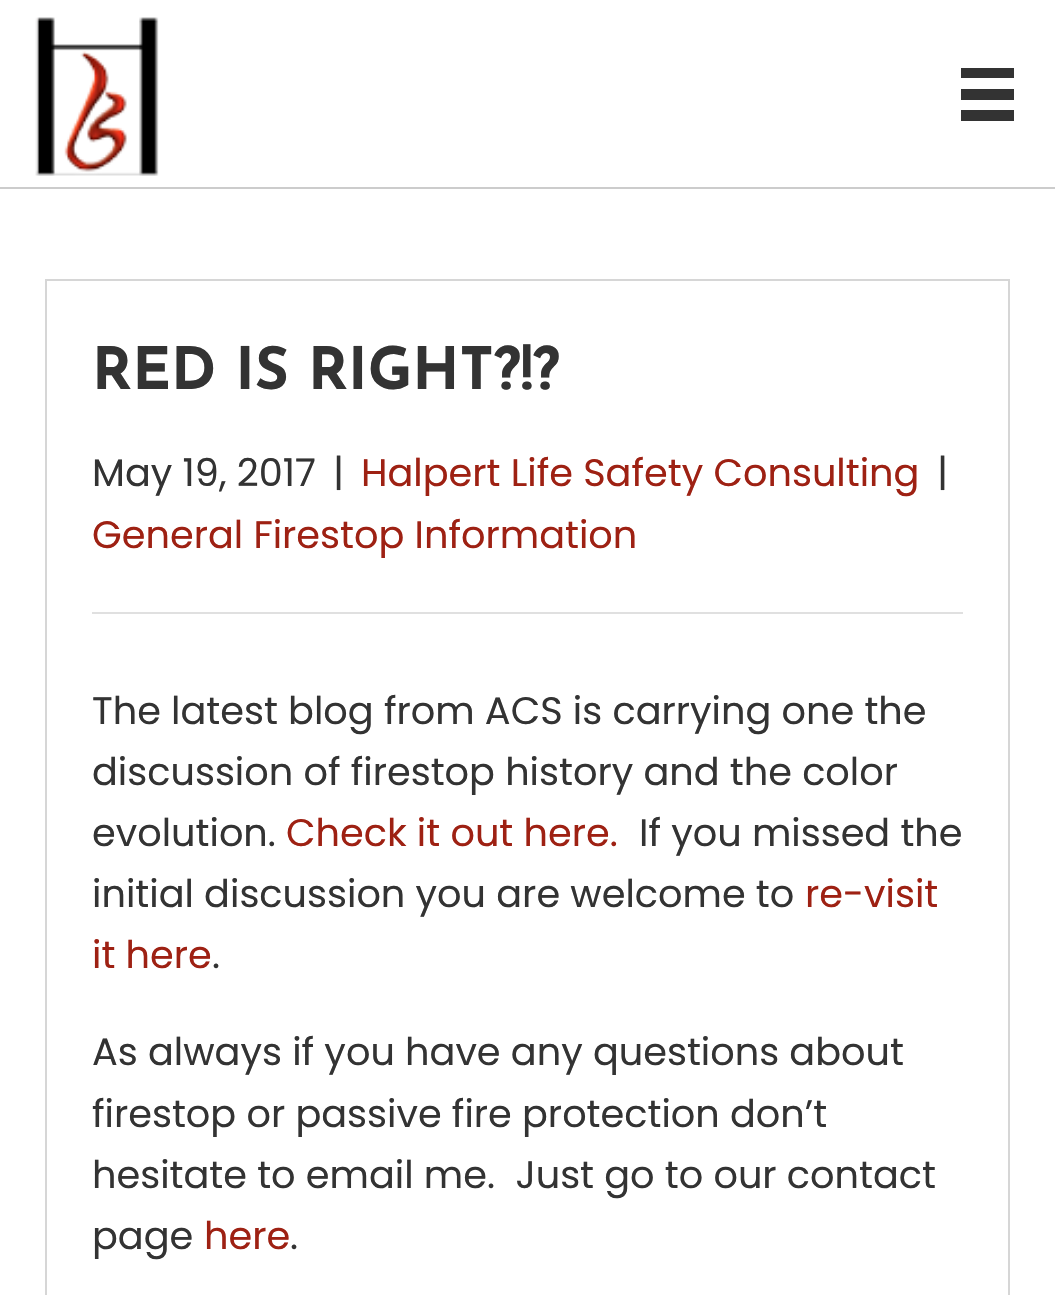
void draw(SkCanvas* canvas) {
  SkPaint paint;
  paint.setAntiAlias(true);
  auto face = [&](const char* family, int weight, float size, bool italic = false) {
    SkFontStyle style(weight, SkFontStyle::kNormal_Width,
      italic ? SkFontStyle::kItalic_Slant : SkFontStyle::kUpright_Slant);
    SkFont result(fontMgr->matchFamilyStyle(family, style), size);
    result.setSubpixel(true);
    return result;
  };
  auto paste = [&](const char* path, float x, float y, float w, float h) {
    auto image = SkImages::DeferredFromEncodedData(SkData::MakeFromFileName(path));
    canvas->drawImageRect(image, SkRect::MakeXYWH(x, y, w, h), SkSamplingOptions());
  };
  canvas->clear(0xffffffff);
  paint.setColor(0xffcccccc);
  canvas->drawRect(SkRect::MakeXYWH(0, 187, 1055, 2), paint);
  paste("img/1.png", 35, 17, 124, 159);
  {
    const struct { float x, y, w, h; SkColor color; } items[] = {
      {961, 68, 53, 10, 0xff333333},
      {961, 89, 53, 11, 0xff333333},
      {961, 110, 53, 11, 0xff333333},
    };
    for (auto [x, y, w, h, color] : items) {
      paint.setColor(color);
      canvas->drawRect(SkRect::MakeXYWH(x, y, w, h), paint);
    }
  }
  paint.setStroke(true);
  paint.setStrokeWidth(2);
  paint.setColor(0xffd6d6d6);
  canvas->drawRect(SkRect::MakeXYWH(46, 280, 963, 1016), paint);
  paint.setStroke(false);
  paint.setColor(0xffe0e0e0);
  canvas->drawRect(SkRect::MakeXYWH(92, 612, 871, 2), paint);
  auto f0 = face("Josefin Sans", 100, 58.5f);
  paint.setColor(0xff333333);
  canvas->drawString("RED IS RIGHT?!?", 92, 389, f0, paint);
  auto f1 = face("Poppins", 400, 38.25f);
  canvas->drawString("May 19, 2017", 92, 486, f1, paint);
  canvas->drawString("|", 333, 486, f1, paint);
  paint.setColor(0xff9e2113);
  canvas->drawString("Halpert Life Safety Consulting", 361, 486, f1, paint);
  paint.setColor(0xff333333);
  canvas->drawString("|", 937, 486, f1, paint);
  paint.setColor(0xff9e2113);
  canvas->drawString("General Firestop Information", 92, 548, f1, paint);
  paint.setColor(0xff333333);
  {
    const struct { const char* s; float x, y; } items[] = {
      {"The latest blog from ACS is carrying one the", 92, 724},
      {"discussion of firestop history and the color", 92, 785},
      {"evolution.", 92, 846},
    };
    for (auto [s, x, y] : items) {
      canvas->drawString(s, x, y, f1, paint);
    }
  }
  paint.setColor(0xff9e2113);
  canvas->drawString("Check it out here.", 286, 846, f1, paint);
  paint.setColor(0xff333333);
  canvas->drawString("If you missed the", 639, 846, f1, paint);
  canvas->drawString("initial discussion you are welcome to", 92, 907, f1, paint);
  paint.setColor(0xff9e2113);
  canvas->drawString("re-visit", 805, 907, f1, paint);
  canvas->drawString("it here", 92, 968, f1, paint);
  paint.setColor(0xff333333);
  {
    const struct { const char* s; float x, y; } items[] = {
      {".", 212, 968},
      {"As always if you have any questions about", 92, 1065},
      {"firestop or passive fire protection don’t", 92, 1127},
      {"hesitate to email me.  Just go to our contact", 92, 1188},
      {"page", 92, 1249},
    };
    for (auto [s, x, y] : items) {
      canvas->drawString(s, x, y, f1, paint);
    }
  }
  paint.setColor(0xff9e2113);
  canvas->drawString("here", 204, 1249, f1, paint);
  paint.setColor(0xff333333);
  canvas->drawString(".", 290, 1249, f1, paint);
}
